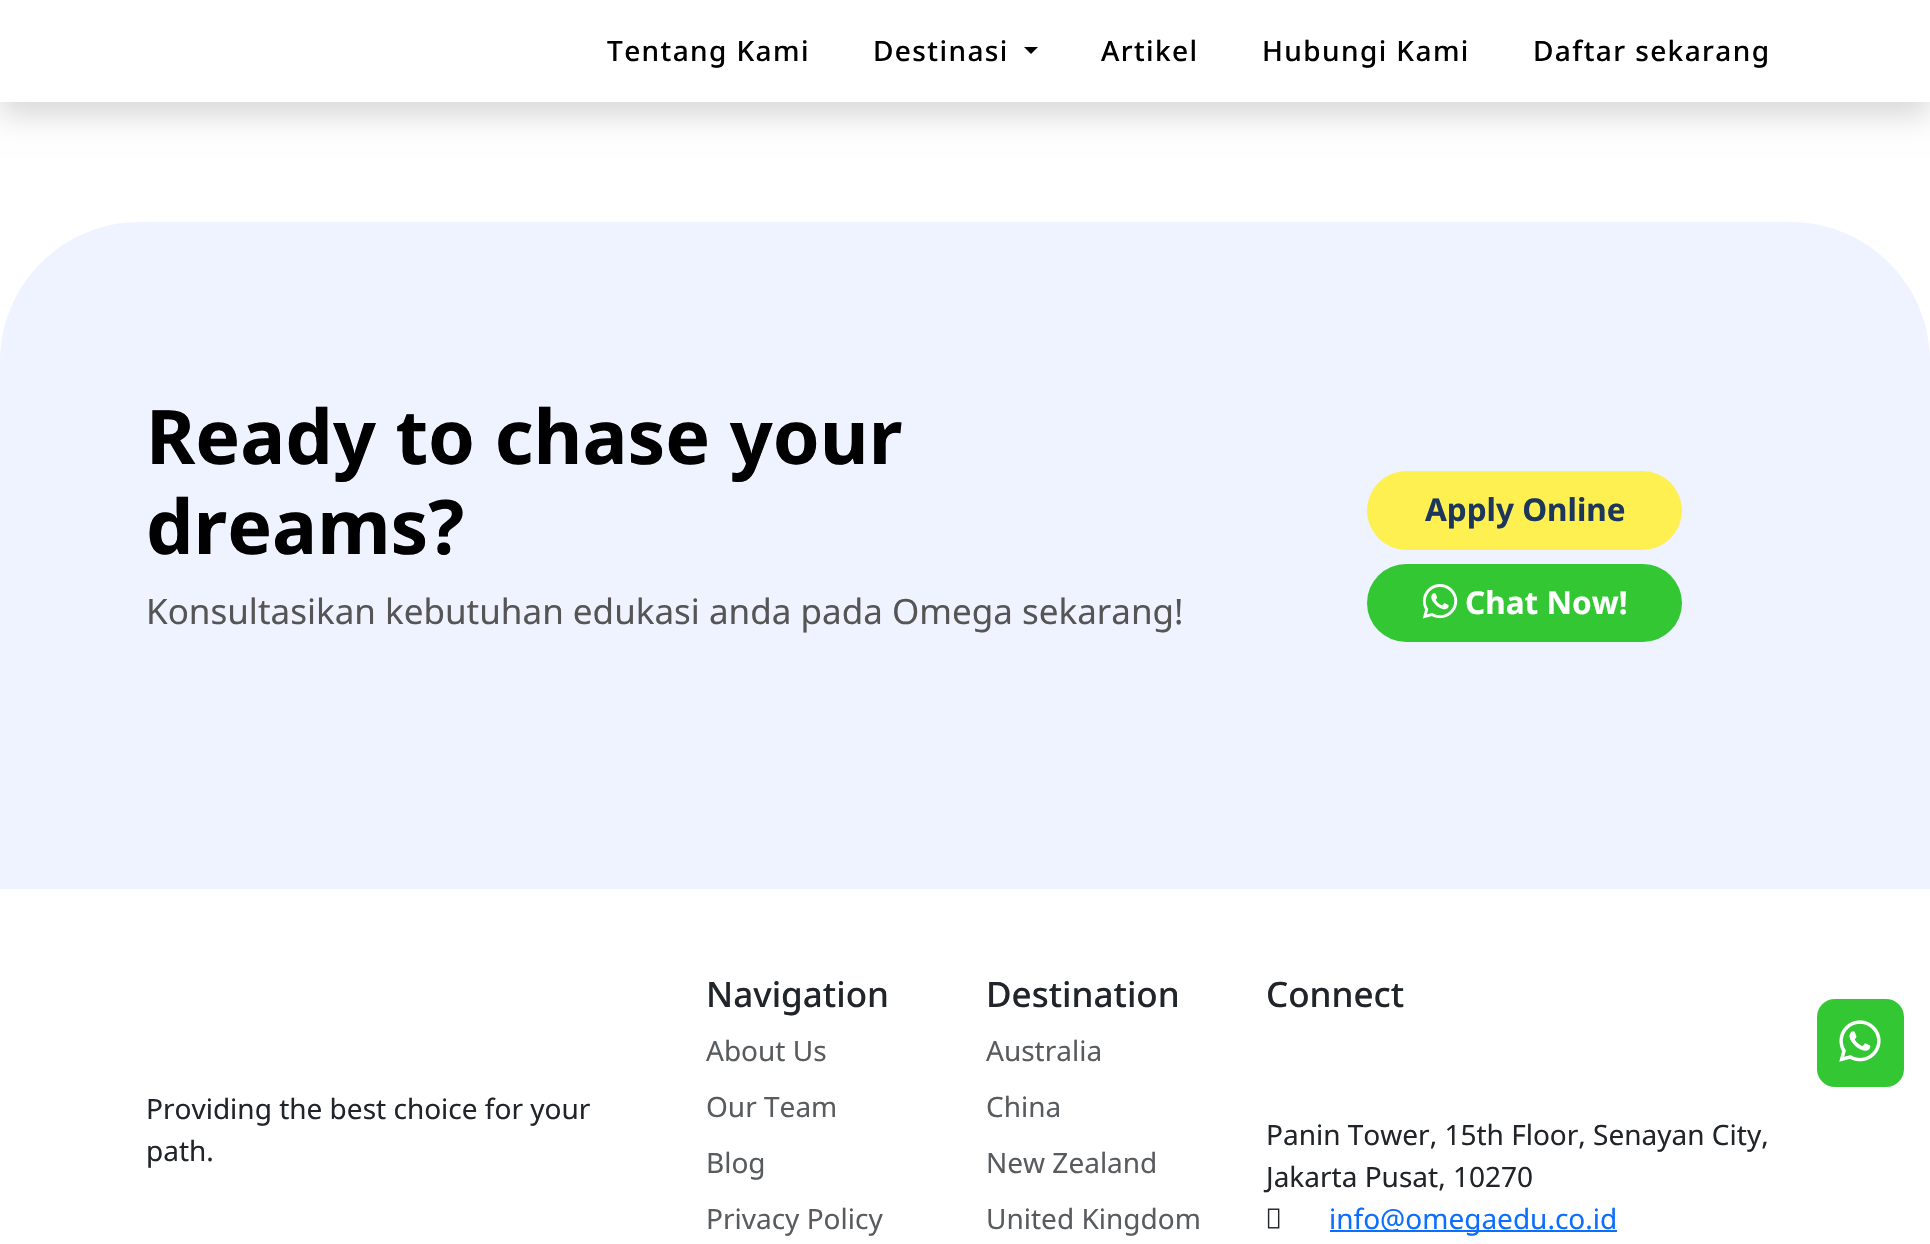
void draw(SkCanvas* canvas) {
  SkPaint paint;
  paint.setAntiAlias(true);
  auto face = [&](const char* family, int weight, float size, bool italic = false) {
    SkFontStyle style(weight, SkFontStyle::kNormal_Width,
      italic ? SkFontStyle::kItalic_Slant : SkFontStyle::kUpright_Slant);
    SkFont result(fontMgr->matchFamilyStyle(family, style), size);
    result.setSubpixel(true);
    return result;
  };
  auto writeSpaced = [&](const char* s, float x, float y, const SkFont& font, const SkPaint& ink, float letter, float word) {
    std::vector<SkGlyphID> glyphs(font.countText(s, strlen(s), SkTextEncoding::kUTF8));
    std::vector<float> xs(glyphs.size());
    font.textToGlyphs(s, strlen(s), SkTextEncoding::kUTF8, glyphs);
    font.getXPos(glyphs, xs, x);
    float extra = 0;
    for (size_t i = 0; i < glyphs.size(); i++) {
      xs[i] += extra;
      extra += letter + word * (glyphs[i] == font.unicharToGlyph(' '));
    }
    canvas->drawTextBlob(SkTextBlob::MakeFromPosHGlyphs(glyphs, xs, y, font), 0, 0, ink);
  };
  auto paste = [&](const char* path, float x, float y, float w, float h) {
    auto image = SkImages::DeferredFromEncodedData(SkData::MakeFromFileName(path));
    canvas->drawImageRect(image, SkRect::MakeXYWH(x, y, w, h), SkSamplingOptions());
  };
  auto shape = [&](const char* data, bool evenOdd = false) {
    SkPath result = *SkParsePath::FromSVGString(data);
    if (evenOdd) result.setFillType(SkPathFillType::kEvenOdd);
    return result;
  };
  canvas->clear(0xffffffff);
  paint.setColor(0x26000000);
  paint.setMaskFilter(SkMaskFilter::MakeBlur(kNormal_SkBlurStyle, 14));
  canvas->drawRect(SkRect::MakeXYWH(0, 14, 1930, 102), paint);
  paint.setMaskFilter(nullptr);
  paint.setColor(0xffffffff);
  canvas->drawRect(SkRect::MakeXYWH(0, 0, 1930, 102), paint);
  paint.setColor(0xff000000);
  canvas->drawPath(shape("M1024 47H1038L1031 54Z"), paint);
  paint.setColor(0xffeff2ff);
  canvas->drawPath(shape("M140 222H1790C1867.5 222 1930 284.5 1930 362V889H0V362C0 284.5 62.5 222 140 222Z"), paint);
  paint.setColor(0xfffff051);
  canvas->drawRoundRect(SkRect::MakeXYWH(1367, 471, 315, 79), 39.5f, 39.5f, paint);
  paint.setColor(0xff33c733);
  canvas->drawRoundRect(SkRect::MakeXYWH(1367, 564, 315, 78), 39, 39, paint);
  paste("img/1.png", 1422, 584, 36, 35);
  paste("img/2.png", 1267, 1208, 13, 21);
  paint.setColor(0xff0d6efd);
  canvas->drawRect(SkRect::MakeXYWH(1330, 1230, 287, 2), paint);
  paint.setColor(0xff33c733);
  canvas->drawRoundRect(SkRect::MakeXYWH(1817, 999, 87, 88), 18, 18, paint);
  paste("img/3.png", 1839, 1020, 42, 42);
  auto f0 = face("Noto Sans", 500, 28);
  paint.setColor(0xff000000);
  {
    const struct { const char* s; float x, y; } items[] = {
      {"Tentang Kami", 607, 61},
      {"Destinasi", 873, 61},
      {"Artikel", 1101, 61},
      {"Hubungi Kami", 1262, 61},
      {"Daftar sekarang", 1533, 61},
    };
    for (auto [s, x, y] : items) {
      writeSpaced(s, x, y, f0, paint, 1.4f, 0);
    }
  }
  auto f1 = face("Noto Sans", 700, 75.25f);
  canvas->drawString("Ready to chase your", 146, 464, f1, paint);
  canvas->drawString("dreams?", 146, 554, f1, paint);
  auto f2 = face("Noto Sans", 400, 35);
  paint.setColor(0xff555555);
  canvas->drawString("Konsultasikan kebutuhan edukasi anda pada Omega sekarang!", 146, 624, f2, paint);
  auto f3 = face("Noto Sans", 700, 31.5f);
  paint.setColor(0xff1c375b);
  canvas->drawString("Apply Online", 1425, 521, f3, paint);
  paint.setColor(0xffffffff);
  canvas->drawString("Chat Now!", 1465, 614, f3, paint);
  auto f4 = face("Noto Sans", 400, 28);
  paint.setColor(0xff212529);
  canvas->drawString("Providing the best choice for your", 146, 1119, f4, paint);
  canvas->drawString("path.", 146, 1161, f4, paint);
  auto f5 = face("Noto Sans", 500, 35);
  canvas->drawString("Navigation", 706, 1007, f5, paint);
  paint.setColor(0xff595c5f);
  {
    const struct { const char* s; float x, y; } items[] = {
      {"About Us", 706, 1061},
      {"Our Team", 706, 1117},
      {"Blog", 706, 1173},
      {"Privacy Policy", 706, 1229},
    };
    for (auto [s, x, y] : items) {
      canvas->drawString(s, x, y, f4, paint);
    }
  }
  paint.setColor(0xff212529);
  canvas->drawString("Destination", 986, 1007, f5, paint);
  paint.setColor(0xff595c5f);
  {
    const struct { const char* s; float x, y; } items[] = {
      {"Australia", 986, 1061},
      {"China", 986, 1117},
      {"New Zealand", 986, 1173},
      {"United Kingdom", 986, 1229},
    };
    for (auto [s, x, y] : items) {
      canvas->drawString(s, x, y, f4, paint);
    }
  }
  paint.setColor(0xff212529);
  canvas->drawString("Connect", 1266, 1007, f5, paint);
  canvas->drawString("Panin Tower, 15th Floor, Senayan City,", 1266, 1145, f4, paint);
  canvas->drawString("Jakarta Pusat, 10270", 1266, 1187, f4, paint);
  paint.setColor(0xff0d6efd);
  canvas->drawString("info@omegaedu.co.id", 1329, 1229, f4, paint);
}
